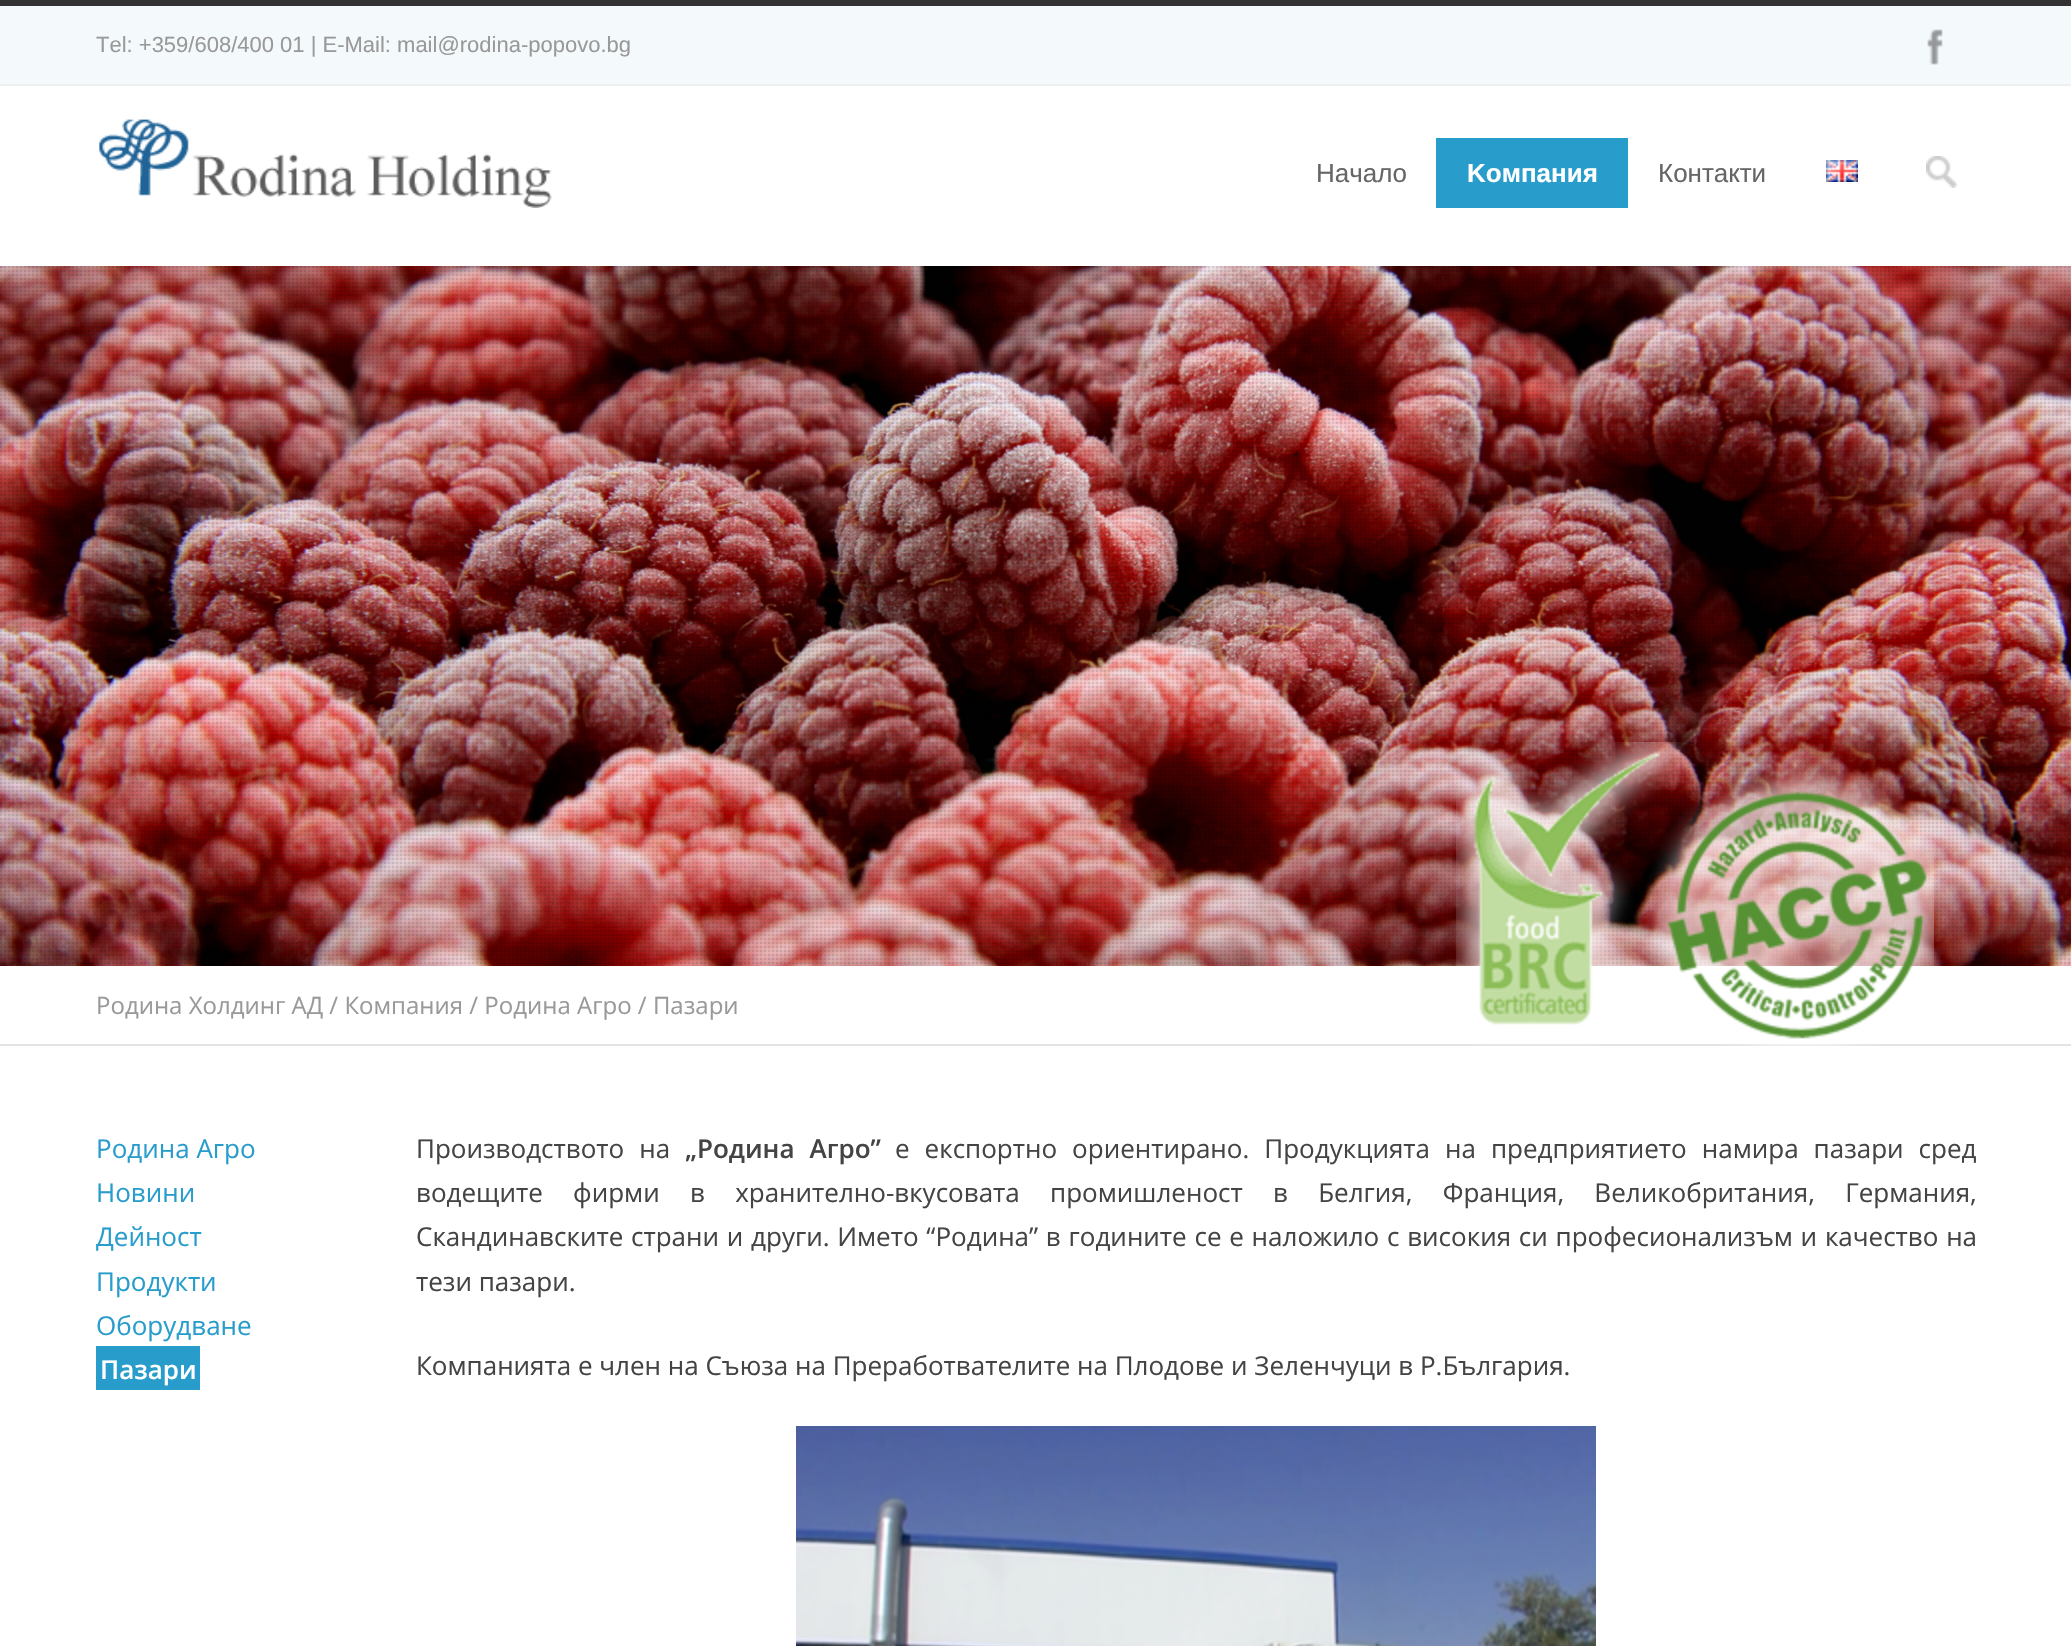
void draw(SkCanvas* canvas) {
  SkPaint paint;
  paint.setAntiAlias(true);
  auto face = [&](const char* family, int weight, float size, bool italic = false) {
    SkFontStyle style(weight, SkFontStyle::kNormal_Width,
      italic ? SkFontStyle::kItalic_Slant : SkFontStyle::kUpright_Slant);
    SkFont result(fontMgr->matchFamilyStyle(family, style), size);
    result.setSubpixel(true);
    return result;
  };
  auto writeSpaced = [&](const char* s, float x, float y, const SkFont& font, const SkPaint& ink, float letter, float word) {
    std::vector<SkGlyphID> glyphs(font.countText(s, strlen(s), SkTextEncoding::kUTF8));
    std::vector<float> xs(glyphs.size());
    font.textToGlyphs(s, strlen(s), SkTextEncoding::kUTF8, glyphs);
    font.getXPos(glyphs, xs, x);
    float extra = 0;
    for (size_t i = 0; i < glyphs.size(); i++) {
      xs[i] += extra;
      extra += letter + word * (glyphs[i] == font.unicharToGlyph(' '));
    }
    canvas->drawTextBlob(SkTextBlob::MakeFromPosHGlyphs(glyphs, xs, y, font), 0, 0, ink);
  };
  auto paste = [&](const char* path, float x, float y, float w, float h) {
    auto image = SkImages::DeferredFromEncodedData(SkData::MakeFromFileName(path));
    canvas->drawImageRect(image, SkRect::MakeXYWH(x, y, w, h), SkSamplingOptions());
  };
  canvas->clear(0xffffffff);
  {
    const struct { float x, y, w, h; SkColor color; } items[] = {
      {0, 0, 2071, 6, 0xff333333},
      {0, 6, 2071, 78, 0xfff4fafc},
      {0, 84, 2071, 2, 0xffefefef},
    };
    for (auto [x, y, w, h, color] : items) {
      paint.setColor(color);
      canvas->drawRect(SkRect::MakeXYWH(x, y, w, h), paint);
    }
  }
  paste("img/1.png", 1927, 29, 16, 36);
  paste("img/2.png", 99, 119, 453, 89);
  paint.setColor(0xff289dcc);
  canvas->drawRect(SkRect::MakeXYWH(1436, 138, 192, 70), paint);
  paste("img/3.png", 1826, 160, 32, 22);
  paste("img/4.png", 1926, 156, 32, 32);
  paste("img/5.png", 0, 266, 2071, 700);
  paste("img/6.png", 0, 266, 2071, 700);
  paint.setColor(0xffe4e4e4);
  canvas->drawRect(SkRect::MakeXYWH(0, 1044, 2071, 2), paint);
  paste("img/7.png", 1456, 742, 478, 304);
  paint.setColor(0xff289dcc);
  canvas->drawRect(SkRect::MakeXYWH(96, 1346, 104, 44), paint);
  paste("img/8.png", 796, 1426, 800, 220);
  auto f0 = face("Liberation Sans", 400, 22);
  paint.setColor(0xff999999);
  canvas->drawString("Tel: +359/608/400 01 | E-Mail: mail@rodina-popovo.bg", 96, 52, f0, paint);
  auto f1 = face("Liberation Sans", 400, 26);
  paint.setColor(0xff666666);
  canvas->drawString("Начало", 1316, 182, f1, paint);
  auto f2 = face("Liberation Sans", 700, 26);
  paint.setColor(0xffffffff);
  canvas->drawString("Kомпания", 1467, 182, f2, paint);
  paint.setColor(0xff666666);
  canvas->drawString("Контакти", 1658, 182, f1, paint);
  auto f3 = face("Open Sans", 400, 24);
  paint.setColor(0xff999999);
  canvas->drawString("Родина Холдинг АД / Компания / Родина Агро / Пазари", 96, 1014, f3, paint);
  auto f4 = face("Open Sans", 400, 26);
  paint.setColor(0xff289dcc);
  {
    const struct { const char* s; float x, y; } items[] = {
      {"Родина Агро", 96, 1158},
      {"Новини", 96, 1202},
      {"Дейност", 96, 1246},
      {"Продукти", 96, 1291},
      {"Оборудване", 96, 1335},
    };
    for (auto [s, x, y] : items) {
      canvas->drawString(s, x, y, f4, paint);
    }
  }
  auto f5 = face("Open Sans", 600, 26);
  paint.setColor(0xffffffff);
  canvas->drawString("Пазари", 100, 1379, f5, paint);
  paint.setColor(0xff444444);
  writeSpaced("Производството на", 416, 1158, f4, paint, 0, 8.25f);
  writeSpaced("„Родина Агро”", 685, 1158, f5, paint, 0, 8.25f);
  writeSpaced("е експортно ориентирано. Продукцията на предприятието намира пазари сред", 895, 1158, f4, paint, 0, 8.25f);
  writeSpaced("водещите фирми в хранително-вкусовата промишленост в Белгия, Франция, Великобритания, Германия,", 416, 1202, f4, paint, 0, 23.5f);
  writeSpaced("Скандинавските страни и други. Името “Родина” в годините се е наложило с високия си професионализъм и качество на", 416, 1246, f4, paint, 0, 1);
  canvas->drawString("тези пазари.", 416, 1291, f4, paint);
  canvas->drawString("Компанията е член на Съюза на Преработвателите на Плодове и Зеленчуци в Р.България.", 416, 1375, f4, paint);
}
